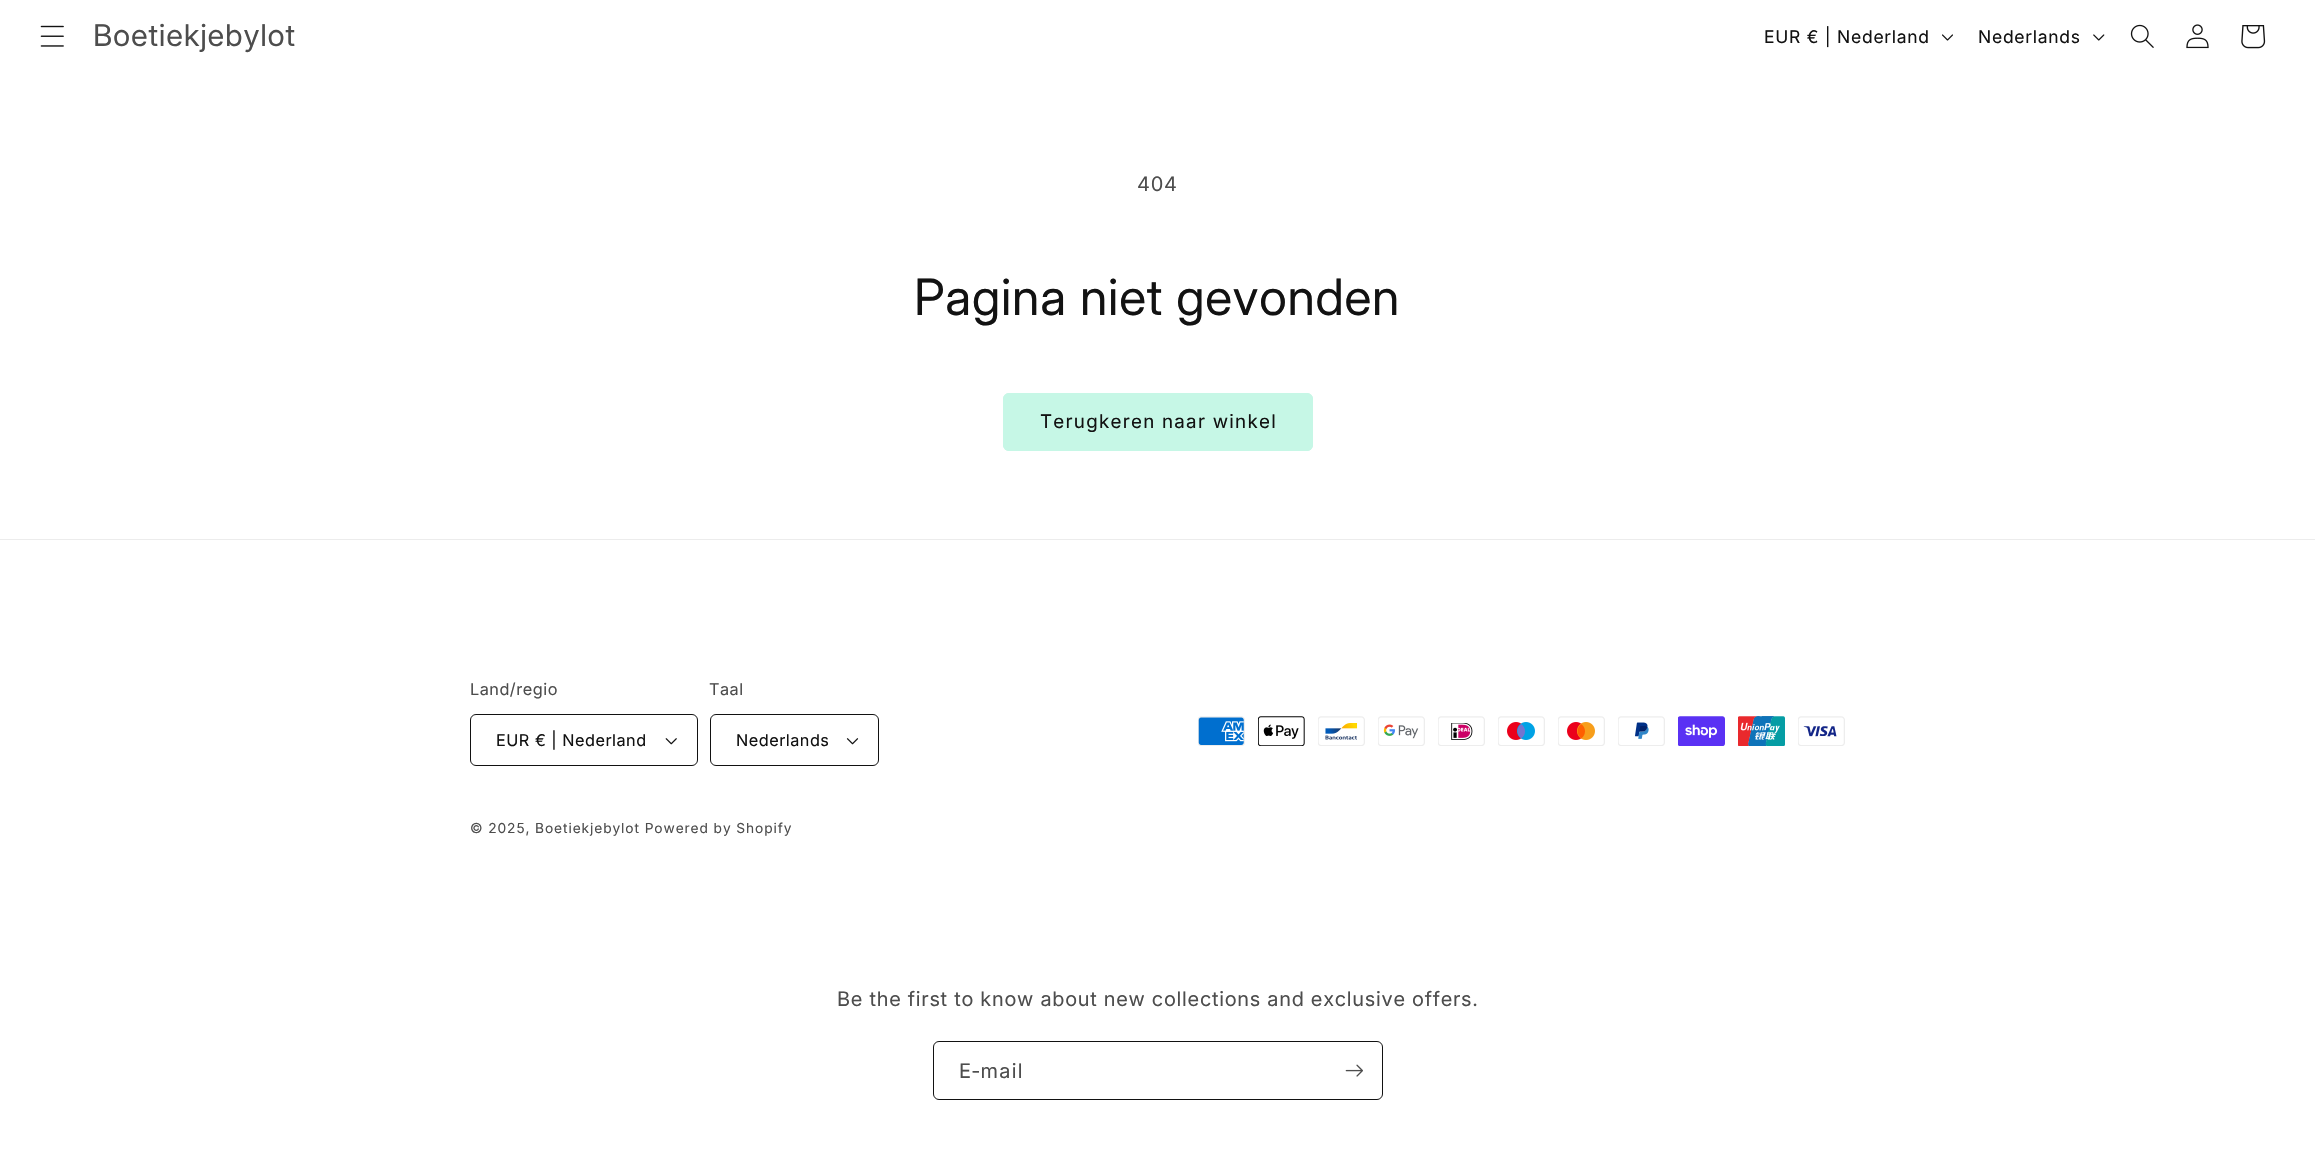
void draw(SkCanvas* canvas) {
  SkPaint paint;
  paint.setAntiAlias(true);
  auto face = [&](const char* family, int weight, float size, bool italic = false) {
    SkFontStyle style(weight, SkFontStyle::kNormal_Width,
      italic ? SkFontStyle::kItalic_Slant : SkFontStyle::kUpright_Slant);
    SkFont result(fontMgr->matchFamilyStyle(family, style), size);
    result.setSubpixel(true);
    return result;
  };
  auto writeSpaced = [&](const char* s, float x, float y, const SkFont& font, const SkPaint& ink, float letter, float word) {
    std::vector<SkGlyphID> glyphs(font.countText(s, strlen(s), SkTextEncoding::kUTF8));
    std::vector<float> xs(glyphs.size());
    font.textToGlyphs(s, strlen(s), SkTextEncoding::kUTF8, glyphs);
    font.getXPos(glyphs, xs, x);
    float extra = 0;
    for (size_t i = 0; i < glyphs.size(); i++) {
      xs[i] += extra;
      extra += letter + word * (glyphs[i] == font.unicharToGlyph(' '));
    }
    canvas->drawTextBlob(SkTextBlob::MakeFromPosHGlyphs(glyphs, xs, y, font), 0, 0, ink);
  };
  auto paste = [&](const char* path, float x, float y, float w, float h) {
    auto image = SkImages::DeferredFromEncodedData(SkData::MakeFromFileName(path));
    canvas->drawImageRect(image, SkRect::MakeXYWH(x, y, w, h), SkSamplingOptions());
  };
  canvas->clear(0xffffffff);
  paste("img/1.png", 40, 25, 24, 22);
  paste("img/2.png", 1942, 34, 11, 7);
  paste("img/3.png", 2093, 34, 12, 7);
  paste("img/4.png", 2130, 24, 24, 24);
  paste("img/5.png", 2186, 24, 23, 25);
  paste("img/6.png", 2241, 25, 25, 24);
  paint.setColor(0xffc6f7e6);
  canvas->drawRoundRect(SkRect::MakeXYWH(1003, 393, 310, 58), 6, 6, paint);
  paint.setStroke(true);
  paint.setStrokeWidth(1);
  canvas->drawRoundRect(SkRect::MakeXYWH(1003.5f, 393.5f, 309, 57), 5.5f, 5.5f, paint);
  paint.setStroke(false);
  paint.setColor(0xffececec);
  canvas->drawRect(SkRect::MakeXYWH(0, 539, 2315, 1), paint);
  paste("img/7.png", 665, 738, 12, 7);
  paint.setStroke(true);
  paint.setColor(0xff121212);
  canvas->drawRoundRect(SkRect::MakeXYWH(470.5f, 714.5f, 227, 51), 5.5f, 5.5f, paint);
  paste("img/8.png", 846, 738, 13, 7);
  canvas->drawRoundRect(SkRect::MakeXYWH(710.5f, 714.5f, 168, 51), 5.5f, 5.5f, paint);
  paste("img/9.png", 1198, 716, 47, 30);
  paste("img/10.png", 1258, 716, 47, 30);
  paste("img/11.png", 1318, 716, 47, 30);
  paste("img/12.png", 1378, 716, 47, 30);
  paste("img/13.png", 1438, 716, 47, 30);
  paste("img/14.png", 1498, 716, 47, 30);
  paste("img/15.png", 1558, 716, 47, 30);
  paste("img/16.png", 1618, 716, 47, 30);
  paste("img/17.png", 1678, 716, 47, 30);
  paste("img/18.png", 1738, 716, 47, 30);
  paste("img/19.png", 1798, 716, 47, 30);
  canvas->drawRoundRect(SkRect::MakeXYWH(933.5f, 1041.5f, 449, 58), 5.5f, 5.5f, paint);
  paste("img/20.png", 1345, 1064, 18, 13);
  auto f0 = face("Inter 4", 400, 30);
  paint.setStroke(false);
  paint.setColor(0xff4d4d4d);
  writeSpaced("Boetiekjebylot", 93, 46, f0, paint, 0.75f, 0);
  auto f1 = face("Inter", 400, 17.5f);
  paint.setColor(0xff121212);
  writeSpaced("EUR € | Nederland", 1764, 43, f1, paint, 0.75f, 0);
  writeSpaced("Nederlands", 1978, 43, f1, paint, 0.75f, 0);
  auto f2 = face("Inter", 400, 20);
  paint.setColor(0xff4d4d4d);
  writeSpaced("404", 1137, 191, f2, paint, 0.75f, 0);
  auto f3 = face("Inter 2", 400, 50);
  paint.setColor(0xff121212);
  writeSpaced("Pagina niet gevonden", 914, 315, f3, paint, 0.75f, 0);
  auto f4 = face("Inter", 400, 18.75f);
  writeSpaced("Terugkeren naar winkel", 1040, 428, f4, paint, 1.25f, 0);
  auto f5 = face("Inter", 400, 16.25f);
  paint.setColor(0xff4d4d4d);
  writeSpaced("Land/regio", 470, 695, f5, paint, 0.5f, 0);
  paint.setColor(0xff121212);
  writeSpaced("EUR € | Nederland", 496, 746, f5, paint, 0.5f, 0);
  paint.setColor(0xff4d4d4d);
  writeSpaced("Taal", 709, 695, f5, paint, 0.5f, 0);
  paint.setColor(0xff121212);
  writeSpaced("Nederlands", 736, 746, f5, paint, 0.5f, 0);
  auto f6 = face("Inter", 400, 13.75f);
  paint.setColor(0xff4d4d4d);
  writeSpaced("© 2025, Boetiekjebylot Powered by Shopify", 470, 833, f6, paint, 0.9f, 0);
  auto f7 = face("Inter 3", 400, 20);
  writeSpaced("Be the first to know about new collections and exclusive offers.", 837, 1006, f7, paint, 0.75f, 0);
  writeSpaced("E‑mail", 959, 1078, f7, paint, 1.25f, 0);
}
